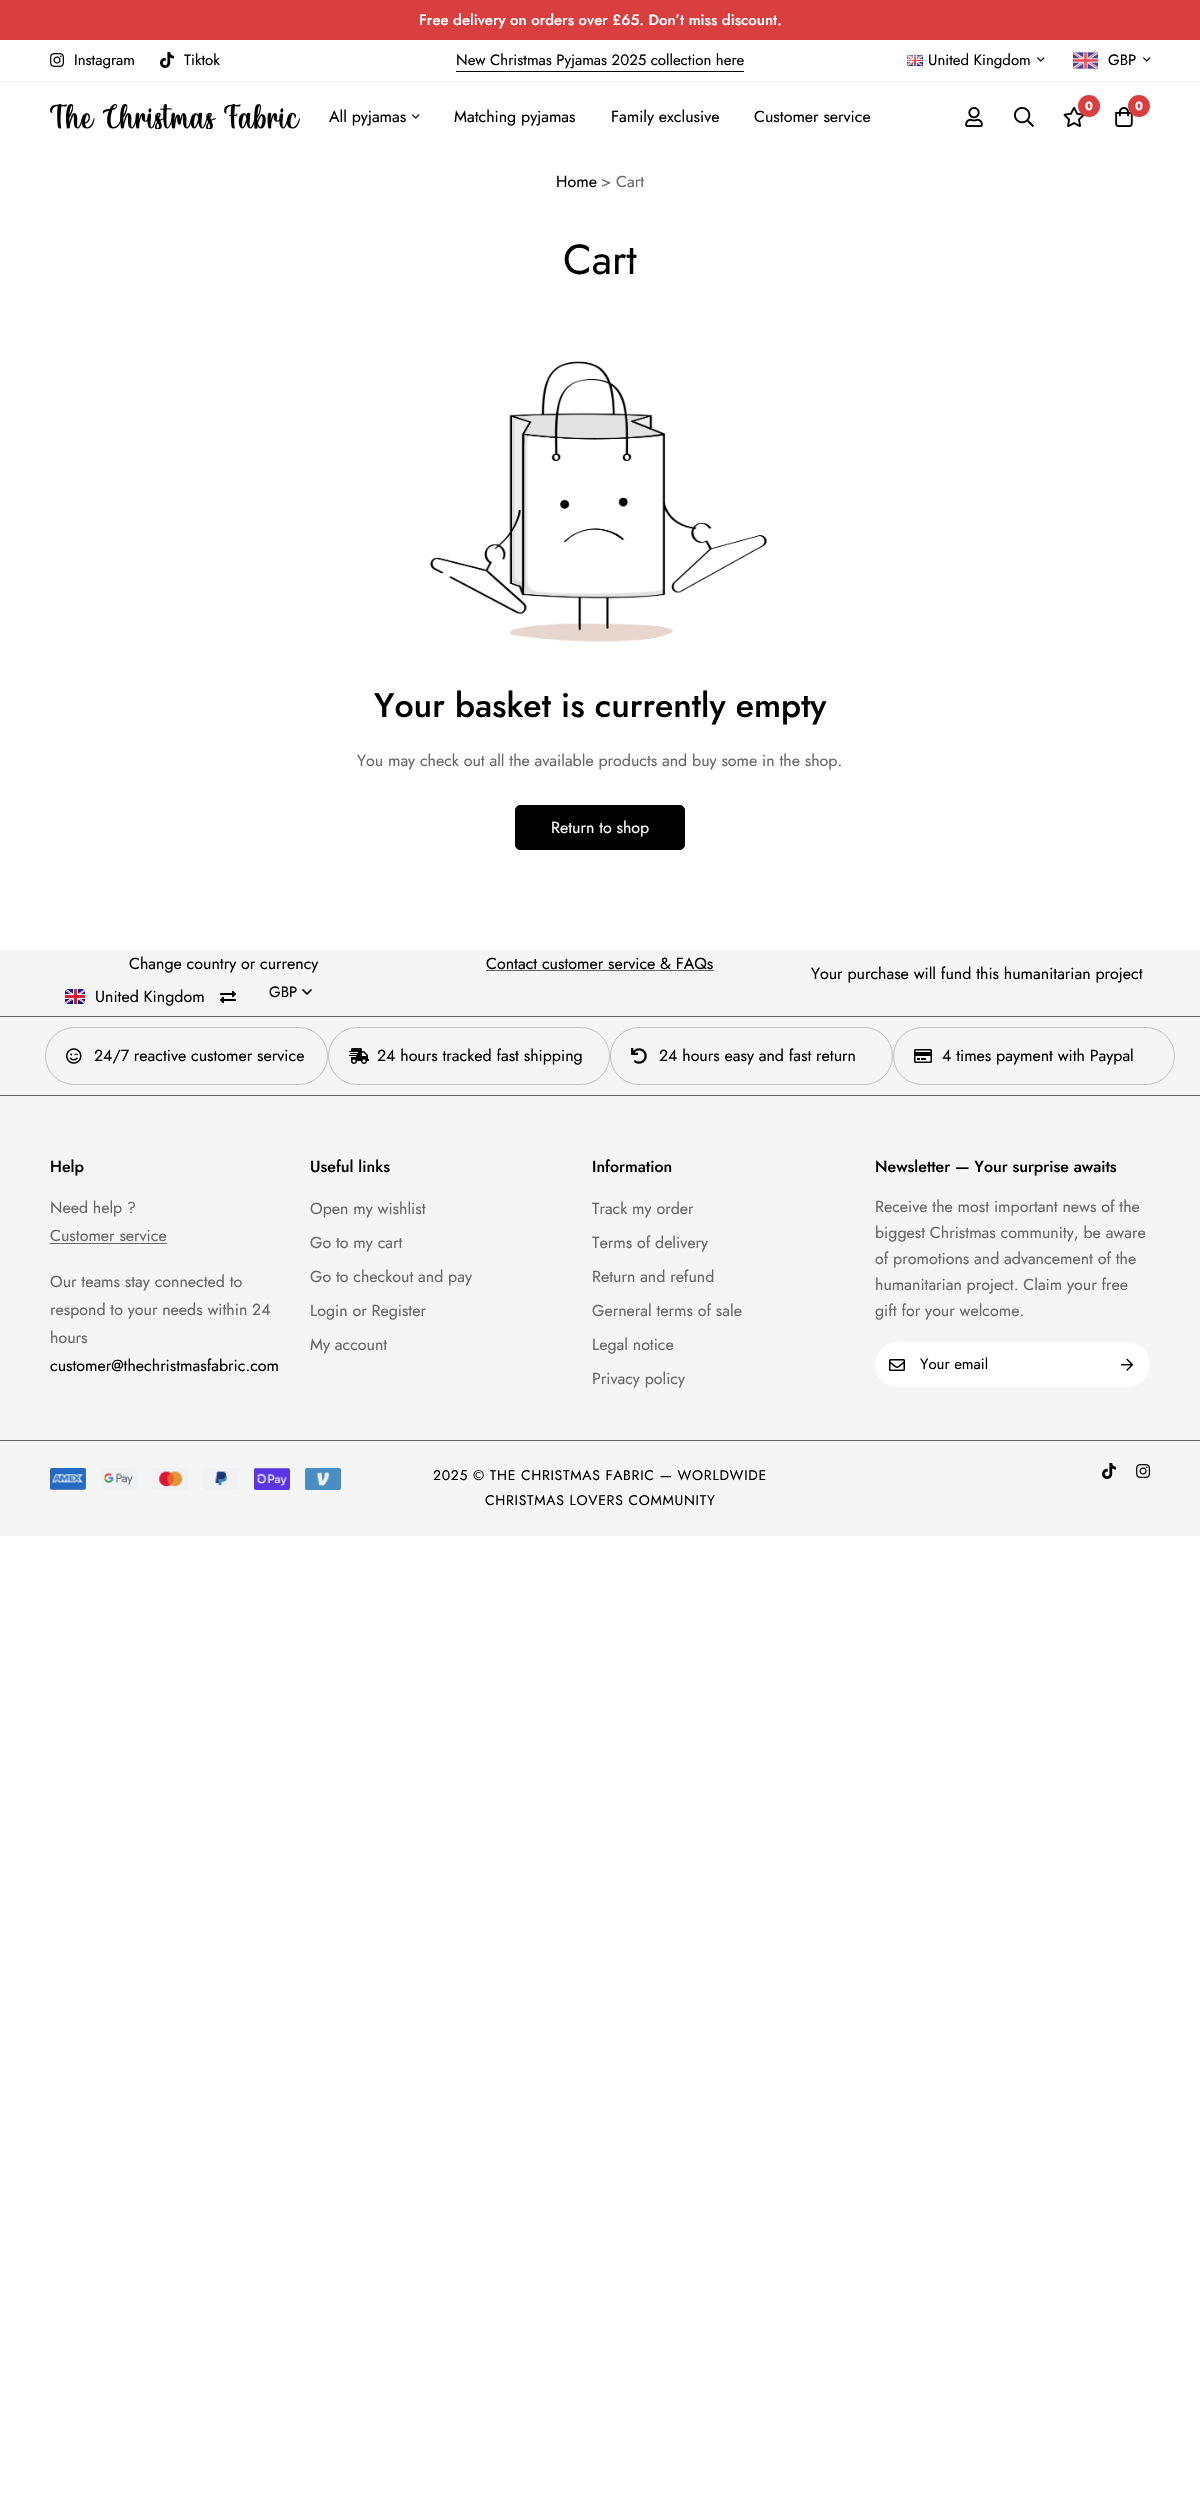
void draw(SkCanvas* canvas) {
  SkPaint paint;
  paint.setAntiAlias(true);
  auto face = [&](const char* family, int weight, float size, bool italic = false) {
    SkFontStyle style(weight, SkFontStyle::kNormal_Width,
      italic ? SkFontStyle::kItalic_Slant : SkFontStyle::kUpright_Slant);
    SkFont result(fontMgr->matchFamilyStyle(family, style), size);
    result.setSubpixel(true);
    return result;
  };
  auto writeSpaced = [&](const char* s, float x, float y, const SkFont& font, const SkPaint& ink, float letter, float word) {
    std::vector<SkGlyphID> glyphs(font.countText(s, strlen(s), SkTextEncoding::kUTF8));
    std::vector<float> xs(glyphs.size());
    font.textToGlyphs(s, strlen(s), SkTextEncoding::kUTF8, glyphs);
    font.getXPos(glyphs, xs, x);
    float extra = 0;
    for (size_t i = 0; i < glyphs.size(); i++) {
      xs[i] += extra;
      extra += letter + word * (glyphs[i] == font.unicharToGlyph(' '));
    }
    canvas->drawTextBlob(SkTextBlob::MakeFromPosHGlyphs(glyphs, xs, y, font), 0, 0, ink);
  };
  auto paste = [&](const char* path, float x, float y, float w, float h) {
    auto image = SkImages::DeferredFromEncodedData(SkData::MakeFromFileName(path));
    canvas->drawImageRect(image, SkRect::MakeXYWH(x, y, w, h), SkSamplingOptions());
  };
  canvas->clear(0xffffffff);
  paint.setColor(0xffda3f3f);
  canvas->drawRect(SkRect::MakeXYWH(0, 0, 1200, 40), paint);
  paint.setColor(0xffeeeeee);
  canvas->drawRect(SkRect::MakeXYWH(0, 81, 1200, 1), paint);
  paste("img/1.png", 50, 53, 15, 14);
  paste("img/2.png", 160, 52, 14, 16);
  paint.setColor(0xff000000);
  canvas->drawRect(SkRect::MakeXYWH(456, 71, 288, 1), paint);
  paste("img/3.png", 907, 55, 16, 11);
  paste("img/4.png", 1037, 57, 8, 5);
  paste("img/5.png", 1073, 52, 25, 17);
  paste("img/4.png", 1143, 57, 8, 5);
  paste("img/6.png", 50, 104, 250, 25);
  paste("img/4.png", 412, 114, 8, 5);
  paste("img/7.png", 1063, 107, 22, 20);
  paint.setColor(0xffda3f3f);
  canvas->drawCircle(1089, 106, 11, paint);
  paste("img/8.png", 1115, 107, 18, 20);
  canvas->drawCircle(1139, 106, 11, paint);
  paste("img/9.png", 965, 107, 18, 20);
  paste("img/10.png", 1014, 107, 20, 20);
  paste("img/11.png", 430, 361, 337, 281);
  paint.setColor(0xff000000);
  canvas->drawRoundRect(SkRect::MakeXYWH(515.5f, 805.5f, 169, 44), 4.5f, 4.5f, paint);
  paint.setStroke(true);
  paint.setStrokeWidth(1);
  canvas->drawRoundRect(SkRect::MakeXYWH(515.5f, 805.5f, 169, 44), 4.5f, 4.5f, paint);
  paint.setStroke(false);
  paint.setColor(0xfff5f5f5);
  canvas->drawRect(SkRect::MakeXYWH(0, 950, 1200, 66), paint);
  paint.setColor(0xff666666);
  canvas->drawRect(SkRect::MakeXYWH(0, 1016, 1200, 1), paint);
  paste("img/12.png", 65, 989, 20, 15);
  paste("img/13.png", 220, 990, 16, 14);
  paste("img/14.png", 302, 989, 10, 6);
  {
    const struct { float x, y, w, h; SkColor color; } items[] = {
      {486, 970, 228, 1, 0xff666666},
      {0, 1017, 1200, 78, 0xfff5f5f5},
      {0, 1095, 1200, 1, 0xff666666},
    };
    for (auto [x, y, w, h, color] : items) {
      paint.setColor(color);
      canvas->drawRect(SkRect::MakeXYWH(x, y, w, h), paint);
    }
  }
  paint.setStroke(true);
  paint.setColor(0xffc2c2c2);
  canvas->drawRoundRect(SkRect::MakeXYWH(45.5f, 1027.5f, 282, 57), 28.5f, 28.5f, paint);
  paste("img/15.png", 66, 1048, 16, 16);
  canvas->drawRoundRect(SkRect::MakeXYWH(328.5f, 1027.5f, 281, 57), 28.5f, 28.5f, paint);
  paste("img/16.png", 349, 1048, 20, 16);
  canvas->drawRoundRect(SkRect::MakeXYWH(610.5f, 1027.5f, 282, 57), 28.5f, 28.5f, paint);
  paste("img/17.png", 631, 1048, 16, 16);
  canvas->drawRoundRect(SkRect::MakeXYWH(893.5f, 1027.5f, 281, 57), 28.5f, 28.5f, paint);
  paste("img/18.png", 914, 1049, 18, 14);
  paint.setStroke(false);
  paint.setColor(0xfff5f5f5);
  canvas->drawRect(SkRect::MakeXYWH(0, 1096, 1200, 344), paint);
  paint.setColor(0xff666666);
  canvas->drawRect(SkRect::MakeXYWH(50, 1243, 117, 1), paint);
  paint.setColor(0xffffffff);
  canvas->drawRoundRect(SkRect::MakeXYWH(875, 1342, 275, 45), 22.5f, 22.5f, paint);
  paste("img/19.png", 889, 1359, 16, 12);
  paste("img/20.png", 1121, 1358, 13, 13);
  paint.setColor(0xfff5f5f5);
  canvas->drawRect(SkRect::MakeXYWH(0, 1441, 1200, 95), paint);
  paint.setColor(0xff666666);
  canvas->drawRect(SkRect::MakeXYWH(0, 1440, 1200, 1), paint);
  paste("img/21.png", 50, 1468, 291, 22);
  paste("img/22.png", 1102, 1463, 14, 16);
  paste("img/23.png", 1136, 1464, 15, 14);
  auto f0 = face("Jost", 500, 15);
  paint.setColor(0xffffffff);
  canvas->drawString("Free delivery on orders over £65. Don’t miss discount.", 419, 25, f0, paint);
  auto f1 = face("Jost", 400, 15);
  paint.setColor(0xff000000);
  {
    const struct { const char* s; float x, y; } items[] = {
      {"Instagram", 74, 65},
      {"Tiktok", 184, 65},
      {"New Christmas Pyjamas 2025 collection here", 456, 65},
      {"United Kingdom", 928, 65},
      {"GBP", 1108, 65},
    };
    for (auto [s, x, y] : items) {
      canvas->drawString(s, x, y, f1, paint);
    }
  }
  auto f2 = face("Jost", 400, 16);
  {
    const struct { const char* s; float x, y; } items[] = {
      {"All pyjamas", 329, 122},
      {"Matching pyjamas", 454, 122},
      {"Family exclusive", 611, 122},
      {"Customer service", 754, 122},
    };
    for (auto [s, x, y] : items) {
      canvas->drawString(s, x, y, f2, paint);
    }
  }
  auto f3 = face("Jost", 700, 12);
  paint.setColor(0xffffffff);
  canvas->drawString("0", 1085, 110, f3, paint);
  canvas->drawString("0", 1135, 110, f3, paint);
  paint.setColor(0xff000000);
  canvas->drawString("Home", 556, 187, f2, paint);
  paint.setColor(0xff666666);
  canvas->drawString("> Cart", 601, 187, f2, paint);
  auto f4 = face("Jost", 400, 42);
  paint.setColor(0xff000000);
  canvas->drawString("Cart", 563, 274, f4, paint);
  auto f5 = face("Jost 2", 500, 34);
  canvas->drawString("Your basket is currently empty", 374, 717, f5, paint);
  paint.setColor(0xff666666);
  canvas->drawString("You may check out all the available products and buy some in the shop.", 357, 766, f2, paint);
  paint.setColor(0xffffffff);
  canvas->drawString("Return to shop", 551, 833, f2, paint);
  paint.setColor(0xff000000);
  canvas->drawString("Change country or currency", 129, 969, f2, paint);
  canvas->drawString("United Kingdom", 95, 1002, f2, paint);
  canvas->drawString("GBP", 269, 997, f1, paint);
  {
    const struct { const char* s; float x, y; } items[] = {
      {"Contact customer service & FAQs", 486, 969},
      {"Your purchase will fund this humanitarian project", 811, 979},
      {"24/7 reactive customer service", 94, 1061},
      {"24 hours tracked fast shipping", 377, 1061},
      {"24 hours easy and fast return", 659, 1061},
      {"4 times payment with Paypal", 942, 1061},
    };
    for (auto [s, x, y] : items) {
      canvas->drawString(s, x, y, f2, paint);
    }
  }
  auto f6 = face("Jost 2", 500, 16);
  canvas->drawString("Help", 50, 1172, f6, paint);
  paint.setColor(0xff666666);
  {
    const struct { const char* s; float x, y; } items[] = {
      {"Need help ?", 50, 1213},
      {"Customer service", 50, 1241},
      {"Our teams stay connected to", 50, 1287},
      {"respond to your needs within 24", 50, 1315},
      {"hours", 50, 1343},
    };
    for (auto [s, x, y] : items) {
      canvas->drawString(s, x, y, f2, paint);
    }
  }
  paint.setColor(0xff000000);
  canvas->drawString("customer@thechristmasfabric.com", 50, 1371, f2, paint);
  canvas->drawString("Useful links", 310, 1172, f6, paint);
  paint.setColor(0xff666666);
  {
    const struct { const char* s; float x, y; } items[] = {
      {"Open my wishlist", 310, 1214},
      {"Go to my cart", 310, 1248},
      {"Go to checkout and pay", 310, 1282},
      {"Login or Register", 310, 1316},
      {"My account", 310, 1350},
    };
    for (auto [s, x, y] : items) {
      canvas->drawString(s, x, y, f2, paint);
    }
  }
  paint.setColor(0xff000000);
  canvas->drawString("Information", 592, 1172, f6, paint);
  paint.setColor(0xff666666);
  {
    const struct { const char* s; float x, y; } items[] = {
      {"Track my order", 592, 1214},
      {"Terms of delivery", 592, 1248},
      {"Return and refund", 592, 1282},
      {"Gerneral terms of sale", 592, 1316},
      {"Legal notice", 592, 1350},
      {"Privacy policy", 592, 1384},
    };
    for (auto [s, x, y] : items) {
      canvas->drawString(s, x, y, f2, paint);
    }
  }
  paint.setColor(0xff000000);
  canvas->drawString("Newsletter — Your surprise awaits", 875, 1172, f6, paint);
  paint.setColor(0xff666666);
  {
    const struct { const char* s; float x, y; } items[] = {
      {"Receive the most important news of the", 875, 1212},
      {"biggest Christmas community, be aware", 875, 1238},
      {"of promotions and advancement of the", 875, 1264},
      {"humanitarian project. Claim your free", 875, 1290},
      {"gift for your welcome.", 875, 1316},
    };
    for (auto [s, x, y] : items) {
      canvas->drawString(s, x, y, f2, paint);
    }
  }
  paint.setColor(0xff000000);
  canvas->drawString("Your email", 920, 1369, f1, paint);
  auto f7 = face("Jost", 400, 14);
  writeSpaced("2025 © THE CHRISTMAS FABRIC — WORLDWIDE", 433, 1480, f7, paint, 0.7f, 0);
  writeSpaced("CHRISTMAS LOVERS COMMUNITY", 485, 1505, f7, paint, 0.7f, 0);
}
